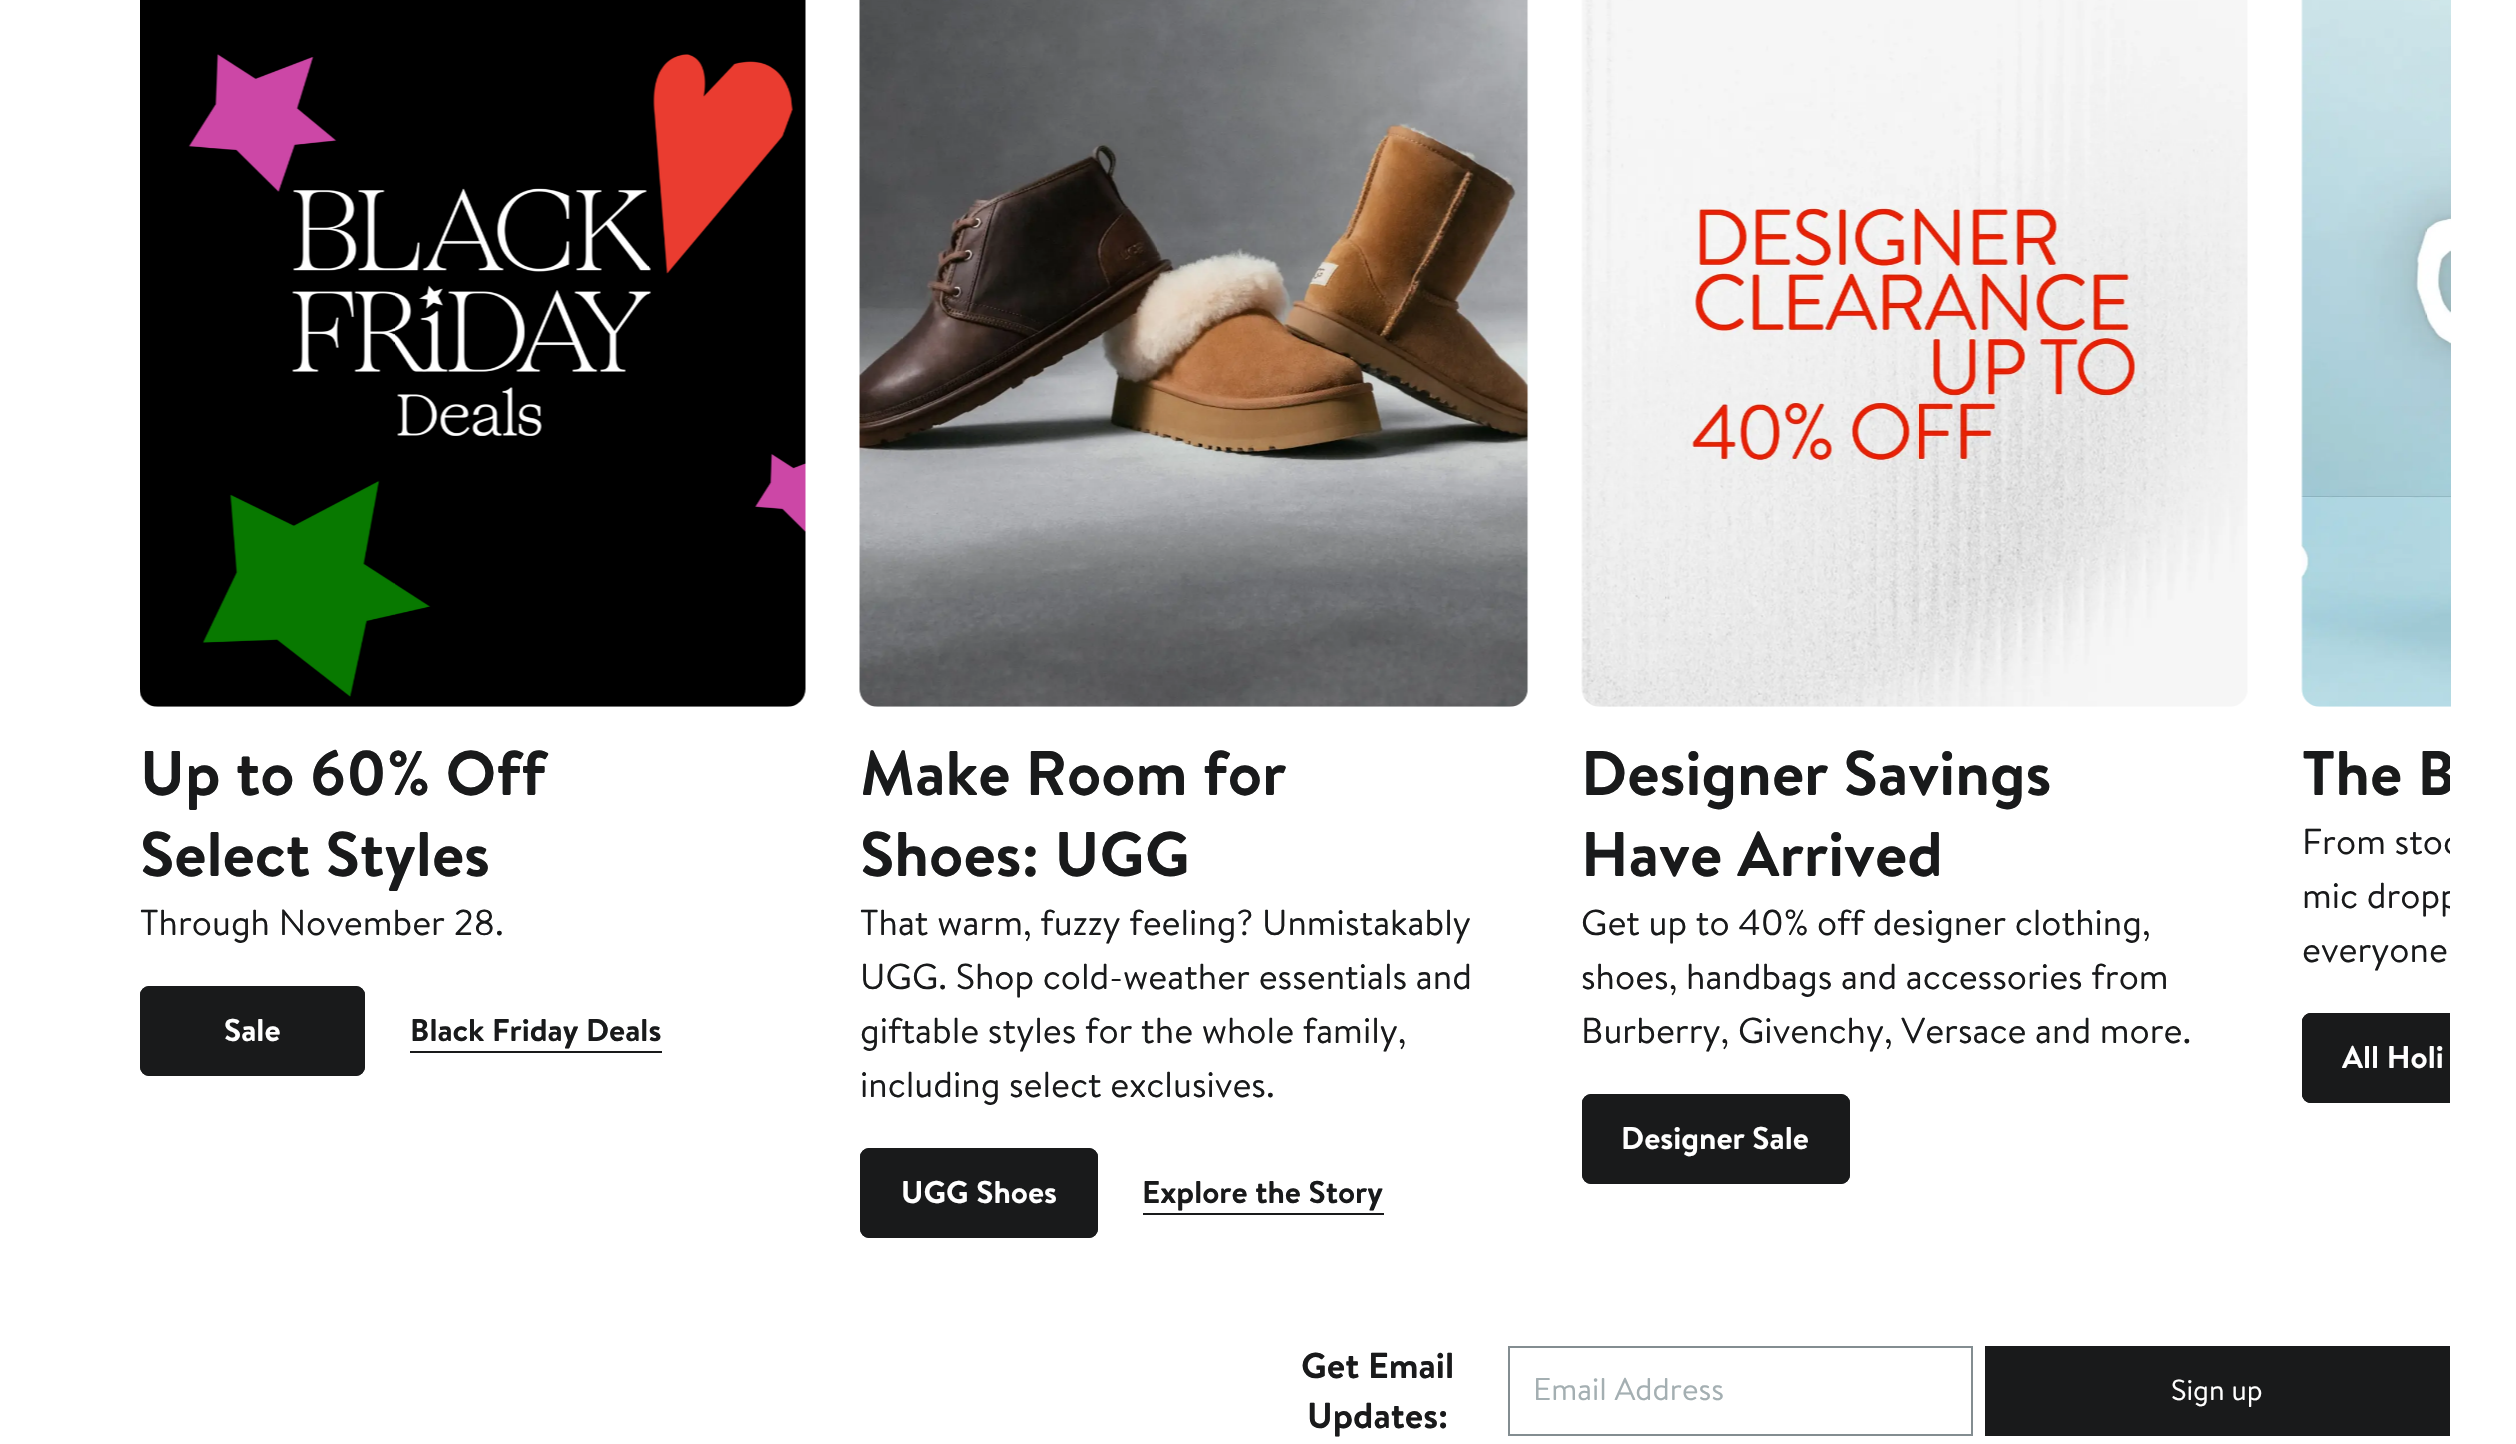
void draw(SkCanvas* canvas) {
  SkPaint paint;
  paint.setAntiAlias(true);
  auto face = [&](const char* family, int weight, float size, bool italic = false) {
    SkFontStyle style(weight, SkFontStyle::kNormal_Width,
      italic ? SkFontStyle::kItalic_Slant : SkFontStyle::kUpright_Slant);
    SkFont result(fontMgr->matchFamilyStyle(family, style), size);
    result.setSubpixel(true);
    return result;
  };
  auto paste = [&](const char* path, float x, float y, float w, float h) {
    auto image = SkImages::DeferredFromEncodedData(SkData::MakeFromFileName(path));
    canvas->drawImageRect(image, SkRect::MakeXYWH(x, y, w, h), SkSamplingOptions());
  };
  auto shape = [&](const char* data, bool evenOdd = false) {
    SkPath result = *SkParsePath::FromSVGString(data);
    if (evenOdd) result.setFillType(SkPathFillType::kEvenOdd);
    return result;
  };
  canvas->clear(0xffffffff);
  paste("img/1.png", 140, 0, 666, 707);
  paint.setStroke(true);
  paint.setStrokeWidth(5);
  paint.setColor(0xff191a1b);
  canvas->drawRoundRect(SkRect::MakeXYWH(142.5f, 988.5f, 220, 85), 6.5f, 6.5f, paint);
  paint.setStroke(false);
  canvas->drawRoundRect(SkRect::MakeXYWH(142.5f, 988.5f, 220, 85), 6.5f, 6.5f, paint);
  paint.setStroke(true);
  canvas->drawRoundRect(SkRect::MakeXYWH(142.5f, 988.5f, 220, 85), 6.5f, 6.5f, paint);
  paint.setStroke(false);
  canvas->drawRect(SkRect::MakeXYWH(410, 1051, 252, 2), paint);
  paste("img/2.png", 859, 0, 670, 707);
  paint.setStroke(true);
  canvas->drawRoundRect(SkRect::MakeXYWH(862.5f, 1150.5f, 233, 85), 6.5f, 6.5f, paint);
  paint.setStroke(false);
  canvas->drawRoundRect(SkRect::MakeXYWH(862.5f, 1150.5f, 233, 85), 6.5f, 6.5f, paint);
  paint.setStroke(true);
  canvas->drawRoundRect(SkRect::MakeXYWH(862.5f, 1150.5f, 233, 85), 6.5f, 6.5f, paint);
  paint.setStroke(false);
  canvas->drawRect(SkRect::MakeXYWH(1143, 1213, 241, 2), paint);
  paste("img/3.png", 1581, 0, 667, 707);
  paint.setStroke(true);
  canvas->drawRoundRect(SkRect::MakeXYWH(1584.5f, 1096.5f, 263, 85), 6.5f, 6.5f, paint);
  paint.setStroke(false);
  canvas->drawRoundRect(SkRect::MakeXYWH(1584.5f, 1096.5f, 263, 85), 6.5f, 6.5f, paint);
  paint.setStroke(true);
  canvas->drawRoundRect(SkRect::MakeXYWH(1584.5f, 1096.5f, 263, 85), 6.5f, 6.5f, paint);
  paste("img/4.png", 2301, 0, 150, 707);
  canvas->save();
  canvas->clipRect(SkRect::MakeXYWH(68, 0, 2382, 1238));
  canvas->drawRoundRect(SkRect::MakeXYWH(2304.5f, 1015.5f, 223, 85), 6.5f, 6.5f, paint);
  canvas->restore();
  paint.setStroke(false);
  canvas->drawPath(shape("M2311 1013H2450V1103H2311C2306 1103 2302 1099 2302 1094V1022C2302 1017 2306 1013 2311 1013Z"), paint);
  canvas->save();
  canvas->clipRect(SkRect::MakeXYWH(68, 0, 2382, 1238));
  paint.setStroke(true);
  canvas->drawRoundRect(SkRect::MakeXYWH(2304.5f, 1015.5f, 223, 85), 6.5f, 6.5f, paint);
  canvas->restore();
  paint.setStrokeWidth(2);
  paint.setColor(0xff838d91);
  canvas->drawRect(SkRect::MakeXYWH(1509, 1347, 463, 88), paint);
  paint.setStroke(false);
  paint.setColor(0xff191a1b);
  canvas->drawRect(SkRect::MakeXYWH(1985, 1346, 465, 90), paint);
  auto f0 = face("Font", 700, 63);
  canvas->drawString("Up to 60% Off", 140, 795, f0, paint);
  canvas->drawString("Select Styles", 140, 876, f0, paint);
  auto f1 = face("Font", 400, 36);
  canvas->drawString("Through November 28.", 140, 935, f1, paint);
  auto f2 = face("Font", 700, 31.5f);
  paint.setColor(0xffffffff);
  canvas->drawString("Sale", 224, 1041, f2, paint);
  paint.setColor(0xff191a1b);
  canvas->drawString("Black Friday Deals", 410, 1041, f2, paint);
  canvas->drawString("Make Room for", 860, 795, f0, paint);
  canvas->drawString("Shoes: UGG", 860, 876, f0, paint);
  {
    const struct { const char* s; float x, y; } items[] = {
      {"That warm, fuzzy feeling? Unmistakably", 860, 935},
      {"UGG. Shop cold-weather essentials and", 860, 989},
      {"giftable styles for the whole family,", 860, 1043},
      {"including select exclusives.", 860, 1097},
    };
    for (auto [s, x, y] : items) {
      canvas->drawString(s, x, y, f1, paint);
    }
  }
  paint.setColor(0xffffffff);
  canvas->drawString("UGG Shoes", 901, 1203, f2, paint);
  paint.setColor(0xff191a1b);
  canvas->drawString("Explore the Story", 1142, 1203, f2, paint);
  canvas->drawString("Designer Savings", 1581, 795, f0, paint);
  canvas->drawString("Have Arrived", 1581, 876, f0, paint);
  {
    const struct { const char* s; float x, y; } items[] = {
      {"Get up to 40% off designer clothing,", 1581, 935},
      {"shoes, handbags and accessories from", 1581, 989},
      {"Burberry, Givenchy, Versace and more.", 1581, 1043},
    };
    for (auto [s, x, y] : items) {
      canvas->drawString(s, x, y, f1, paint);
    }
  }
  paint.setColor(0xffffffff);
  canvas->drawString("Designer Sale", 1621, 1149, f2, paint);
  canvas->save();
  canvas->clipRect(SkRect::MakeXYWH(68, 0, 2382, 1238));
  paint.setColor(0xff191a1b);
  canvas->drawString("The B", 2302, 795, f0, paint);
  canvas->drawString("From stoc", 2302, 854, f1, paint);
  canvas->drawString("mic dropp", 2302, 908, f1, paint);
  canvas->restore();
  canvas->drawString("everyone", 2302, 962, f1, paint);
  paint.setColor(0xffffffff);
  canvas->drawString("All Holi", 2342, 1068, f2, paint);
  auto f3 = face("Font", 700, 36);
  paint.setColor(0xff191a1b);
  canvas->drawString("Get Email", 1301, 1378, f3, paint);
  canvas->drawString("Updates:", 1307, 1428, f3, paint);
  auto f4 = face("Font", 400, 31.5f);
  paint.setColor(0xffa4afb2);
  canvas->drawString("Email Address", 1533, 1400, f4, paint);
  auto f5 = face("Font", 400, 29);
  paint.setColor(0xffffffff);
  canvas->drawString("Sign up", 2171, 1400, f5, paint);
}
